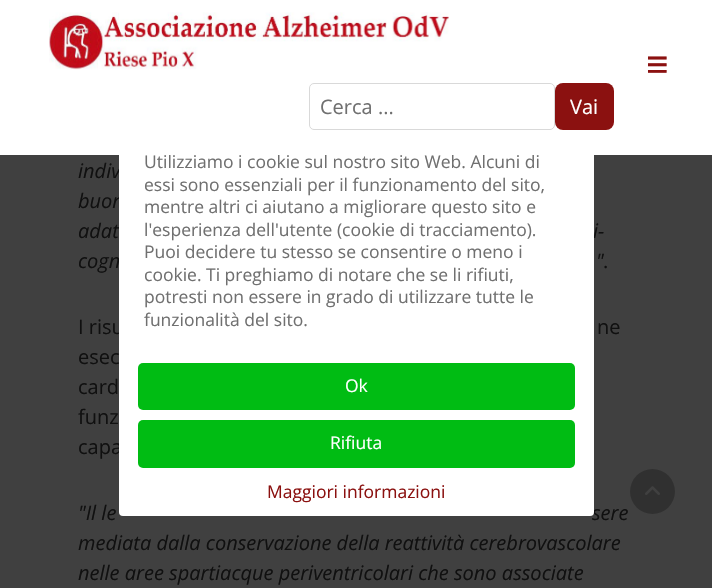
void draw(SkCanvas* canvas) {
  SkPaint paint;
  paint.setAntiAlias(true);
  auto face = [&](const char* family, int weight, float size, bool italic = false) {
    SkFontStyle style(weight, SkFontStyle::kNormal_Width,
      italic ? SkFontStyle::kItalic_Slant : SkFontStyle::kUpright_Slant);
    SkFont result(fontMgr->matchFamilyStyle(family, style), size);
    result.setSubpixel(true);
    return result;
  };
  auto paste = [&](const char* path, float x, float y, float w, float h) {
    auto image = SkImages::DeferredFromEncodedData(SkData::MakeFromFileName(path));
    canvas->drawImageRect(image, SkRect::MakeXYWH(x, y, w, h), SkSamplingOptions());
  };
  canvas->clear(0xff404040);
  paint.setColor(0xff303030);
  canvas->drawCircle(652.5f, 491.5f, 22.5f, paint);
  paste("img/2.png", 645, 486, 15, 9);
  auto f0 = face("Open Sans", 400, 20, true);
  paint.setColor(0xff101010);
  {
    const struct { const char* s; float x, y; } items[] = {
      {"indiv", 78, 178},
      {"buon", 78, 208},
      {"adat", 78, 238},
      {"i-", 593, 238},
      {"\"", 596, 268},
      {"cogn", 78, 268},
    };
    for (auto [s, x, y] : items) {
      canvas->drawString(s, x, y, f0, paint);
    }
  }
  auto f1 = face("Open Sans", 400, 20);
  {
    const struct { const char* s; float x, y; } items[] = {
      {".", 603, 268},
      {"I risu", 78, 334},
      {"ne", 597, 334},
      {"esec", 78, 364},
      {"card", 78, 394},
      {"funz", 78, 424},
      {"capa", 78, 454},
    };
    for (auto [s, x, y] : items) {
      canvas->drawString(s, x, y, f1, paint);
    }
  }
  {
    const struct { const char* s; float x, y; } items[] = {
      {"\"Il le", 78, 520},
      {"sere", 592, 520},
      {"mediata dalla conservazione della reattività cerebrovascolare", 78, 550},
      {"nelle aree spartiacque periventricolari che sono associate", 78, 580},
    };
    for (auto [s, x, y] : items) {
      canvas->drawString(s, x, y, f0, paint);
    }
  }
  paint.setColor(0xffffffff);
  canvas->drawRoundRect(SkRect::MakeXYWH(119, 74, 475, 442), 4, 4, paint);
  auto f2 = face("Open Sans", 400, 17.5f);
  paint.setColor(0xff707070);
  canvas->drawString("Utilizziamo i cookie sul nostro sito Web. Alcuni di", 144, 168, f2, paint);
  paint.setColor(0xffffffff);
  canvas->drawRect(SkRect::MakeXYWH(0, 0, 712, 155), paint);
  auto f3 = face("Liberation Serif", 700, 40);
  paint.setColor(0xff8b1110);
  canvas->drawString("≡", 646, 78, f3, paint);
  canvas->drawRoundRect(SkRect::MakeXYWH(555, 83, 59, 47), 8, 8, paint);
  paint.setColor(0xffffffff);
  canvas->drawString("Vai", 570, 114, f1, paint);
  paint.setStroke(true);
  paint.setStrokeWidth(1);
  paint.setColor(0xffd9d9d9);
  canvas->drawRoundRect(SkRect::MakeXYWH(309.5f, 83.5f, 245, 46), 4.5f, 4.5f, paint);
  paint.setStroke(false);
  paint.setColor(0xff707070);
  canvas->drawString("Cerca ...", 320, 114, f1, paint);
  paste("img/1.png", 49, 12, 400, 58);
  {
    const struct { const char* s; float x, y; } items[] = {
      {"essi sono essenziali per il funzionamento del sito,", 144, 191},
      {"mentre altri ci aiutano a migliorare questo sito e", 144, 213},
      {"l'esperienza dell'utente (cookie di tracciamento).", 144, 236},
      {"Puoi decidere tu stesso se consentire o meno i", 144, 258},
      {"cookie. Ti preghiamo di notare che se li rifiuti,", 144, 281},
      {"potresti non essere in grado di utilizzare tutte le", 144, 303},
      {"funzionalità del sito.", 144, 326},
    };
    for (auto [s, x, y] : items) {
      canvas->drawString(s, x, y, f2, paint);
    }
  }
  paint.setColor(0xff00bc13);
  canvas->drawRoundRect(SkRect::MakeXYWH(138, 363, 437, 47), 5, 5, paint);
  paint.setColor(0xffffffff);
  canvas->drawString("Ok", 345, 392, f2, paint);
  paint.setColor(0xff00bc13);
  canvas->drawRoundRect(SkRect::MakeXYWH(138, 420, 437, 48), 5, 5, paint);
  paint.setColor(0xffffffff);
  canvas->drawString("Rifiuta", 330, 449, f2, paint);
  paint.setColor(0xff8b1110);
  canvas->drawString("Maggiori informazioni", 267, 498, f2, paint);
}
